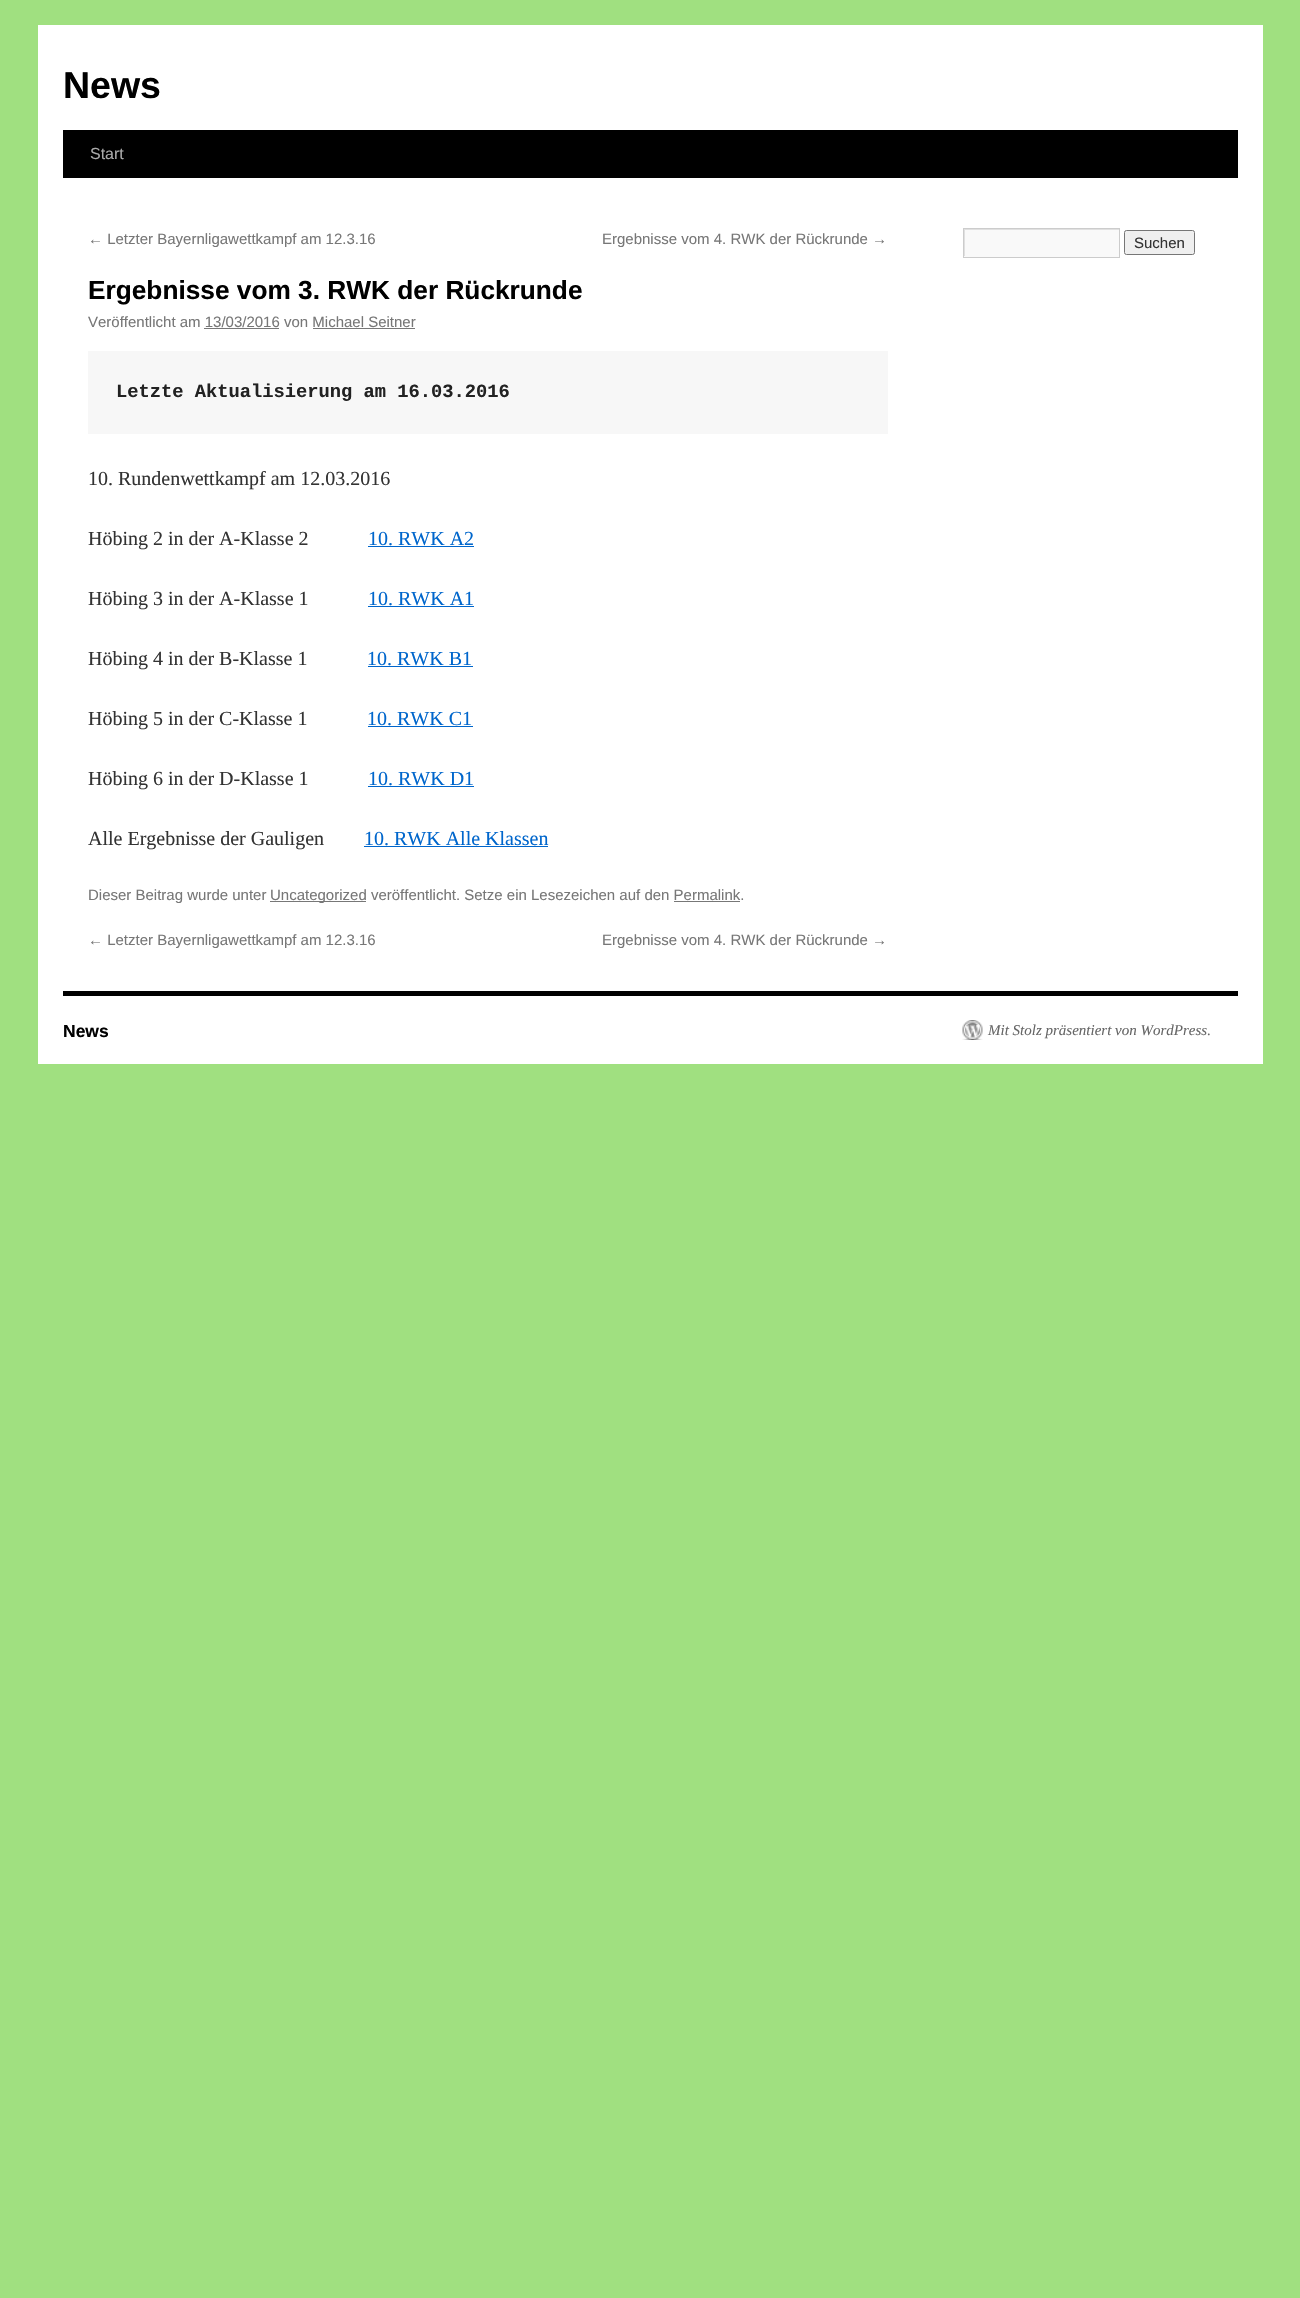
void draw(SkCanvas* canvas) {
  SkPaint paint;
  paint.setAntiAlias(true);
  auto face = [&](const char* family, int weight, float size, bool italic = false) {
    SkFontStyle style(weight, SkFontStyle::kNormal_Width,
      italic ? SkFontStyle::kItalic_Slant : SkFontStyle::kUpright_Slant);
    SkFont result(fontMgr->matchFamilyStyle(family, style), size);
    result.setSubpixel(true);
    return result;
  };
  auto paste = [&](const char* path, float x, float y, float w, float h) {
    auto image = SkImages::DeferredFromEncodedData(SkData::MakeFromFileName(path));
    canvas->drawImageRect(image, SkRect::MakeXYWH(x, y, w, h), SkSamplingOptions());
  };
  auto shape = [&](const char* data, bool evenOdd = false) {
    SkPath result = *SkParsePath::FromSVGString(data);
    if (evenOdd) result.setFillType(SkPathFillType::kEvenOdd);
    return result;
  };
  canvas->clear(0xffa0e080);
  {
    const struct { float x, y, w, h; SkColor color; } items[] = {
      {38, 25, 1225, 1039, 0xffffffff},
      {63, 130, 1175, 48, 0xff000000},
      {204, 328, 75, 1, 0xff777777},
      {313, 328, 102, 1, 0xff777777},
      {88, 351, 800, 83, 0xfff7f7f7},
      {368, 546, 106, 1, 0xff0066cc},
      {368, 606, 106, 1, 0xff0066cc},
      {368, 666, 105, 1, 0xff0066cc},
      {368, 726, 105, 1, 0xff0066cc},
      {368, 786, 106, 1, 0xff0066cc},
      {364, 846, 184, 1, 0xff0066cc},
      {270, 901, 96, 1, 0xff777777},
      {674, 901, 66, 1, 0xff777777},
      {964, 230, 155, 27, 0xfff9f9f9},
    };
    for (auto [x, y, w, h, color] : items) {
      paint.setColor(color);
      canvas->drawRect(SkRect::MakeXYWH(x, y, w, h), paint);
    }
  }
  canvas->save();
  canvas->clipRect(SkRect::MakeXYWH(964, 229, 155, 27));
  paint.setColor(0xffe0e0e0);
  canvas->drawPath(shape("M840 105H1242V380H840ZM965 230H1120V258H965Z", true), paint);
  canvas->restore();
  paint.setStroke(true);
  paint.setStrokeWidth(1);
  paint.setColor(0xffcccccc);
  canvas->drawRect(SkRect::MakeXYWH(963.5f, 228.5f, 156, 29), paint);
  paint.setStroke(false);
  paint.setColor(0xffefefef);
  canvas->drawRoundRect(SkRect::MakeXYWH(1124.5f, 230.5f, 70, 24), 2, 2, paint);
  paint.setStroke(true);
  paint.setColor(0xff767676);
  canvas->drawRoundRect(SkRect::MakeXYWH(1124.5f, 230.5f, 70, 24), 2, 2, paint);
  paint.setStroke(false);
  paint.setColor(0xff000000);
  canvas->drawRect(SkRect::MakeXYWH(63, 991, 1175, 5), paint);
  paste("img/1.png", 962, 1020, 21, 20);
  auto f0 = face("Liberation Sans", 700, 37.5f);
  canvas->drawString("News", 63, 98, f0, paint);
  auto f1 = face("Liberation Sans", 400, 16);
  paint.setColor(0xffaaaaaa);
  canvas->drawString("Start", 90, 159, f1, paint);
  auto f2 = face("Liberation Sans", 400, 15);
  paint.setColor(0xff777777);
  canvas->drawString("← Letzter Bayernligawettkampf am 12.3.16", 88, 244, f2, paint);
  canvas->drawString("Ergebnisse vom 4. RWK der Rückrunde →", 602, 244, f2, paint);
  auto f3 = face("Liberation Sans", 700, 26.25f);
  paint.setColor(0xff000000);
  canvas->drawString("Ergebnisse vom 3. RWK der Rückrunde", 88, 299, f3, paint);
  paint.setColor(0xff777777);
  canvas->drawString("Veröffentlicht am 13/03/2016 von Michael Seitner", 88, 327, f2, paint);
  auto f4 = face("Liberation Mono", 700, 18.75f);
  paint.setColor(0xff222222);
  canvas->drawString("Letzte Aktualisierung am 16.03.2016", 116, 397, f4, paint);
  auto f5 = face("Liberation Serif", 400, 20);
  paint.setColor(0xff333333);
  canvas->drawString("10. Rundenwettkampf am 12.03.2016", 88, 485, f5, paint);
  canvas->drawString("Höbing 2 in der A-Klasse 2", 88, 545, f5, paint);
  paint.setColor(0xff0066cc);
  canvas->drawString("10. RWK A2", 368, 545, f5, paint);
  paint.setColor(0xff333333);
  canvas->drawString("Höbing 3 in der A-Klasse 1", 88, 605, f5, paint);
  paint.setColor(0xff0066cc);
  canvas->drawString("10. RWK A1", 368, 605, f5, paint);
  paint.setColor(0xff333333);
  canvas->drawString("Höbing 4 in der B-Klasse 1", 88, 665, f5, paint);
  paint.setColor(0xff0066cc);
  canvas->drawString("10. RWK B1", 367, 665, f5, paint);
  paint.setColor(0xff333333);
  canvas->drawString("Höbing 5 in der C-Klasse 1", 88, 725, f5, paint);
  paint.setColor(0xff0066cc);
  canvas->drawString("10. RWK C1", 367, 725, f5, paint);
  paint.setColor(0xff333333);
  canvas->drawString("Höbing 6 in der D-Klasse 1", 88, 785, f5, paint);
  paint.setColor(0xff0066cc);
  canvas->drawString("10. RWK D1", 368, 785, f5, paint);
  paint.setColor(0xff333333);
  canvas->drawString("Alle Ergebnisse der Gauligen", 88, 845, f5, paint);
  paint.setColor(0xff0066cc);
  canvas->drawString("10. RWK Alle Klassen", 364, 845, f5, paint);
  paint.setColor(0xff777777);
  {
    const struct { const char* s; float x, y; } items[] = {
      {"Dieser Beitrag wurde unter", 88, 900},
      {"Uncategorized veröffentlicht. Setze ein Lesezeichen auf den Permalink.", 270, 900},
      {"← Letzter Bayernligawettkampf am 12.3.16", 88, 945},
      {"Ergebnisse vom 4. RWK der Rückrunde →", 602, 945},
    };
    for (auto [s, x, y] : items) {
      canvas->drawString(s, x, y, f2, paint);
    }
  }
  paint.setColor(0xff333333);
  canvas->drawString("Suchen", 1134, 248, f2, paint);
  auto f6 = face("Liberation Sans", 700, 17.5f);
  paint.setColor(0xff000000);
  canvas->drawString("News", 63, 1037, f6, paint);
  auto f7 = face("Liberation Serif", 400, 15, true);
  paint.setColor(0xff666666);
  canvas->drawString("Mit Stolz präsentiert von WordPress.", 988, 1035, f7, paint);
}
